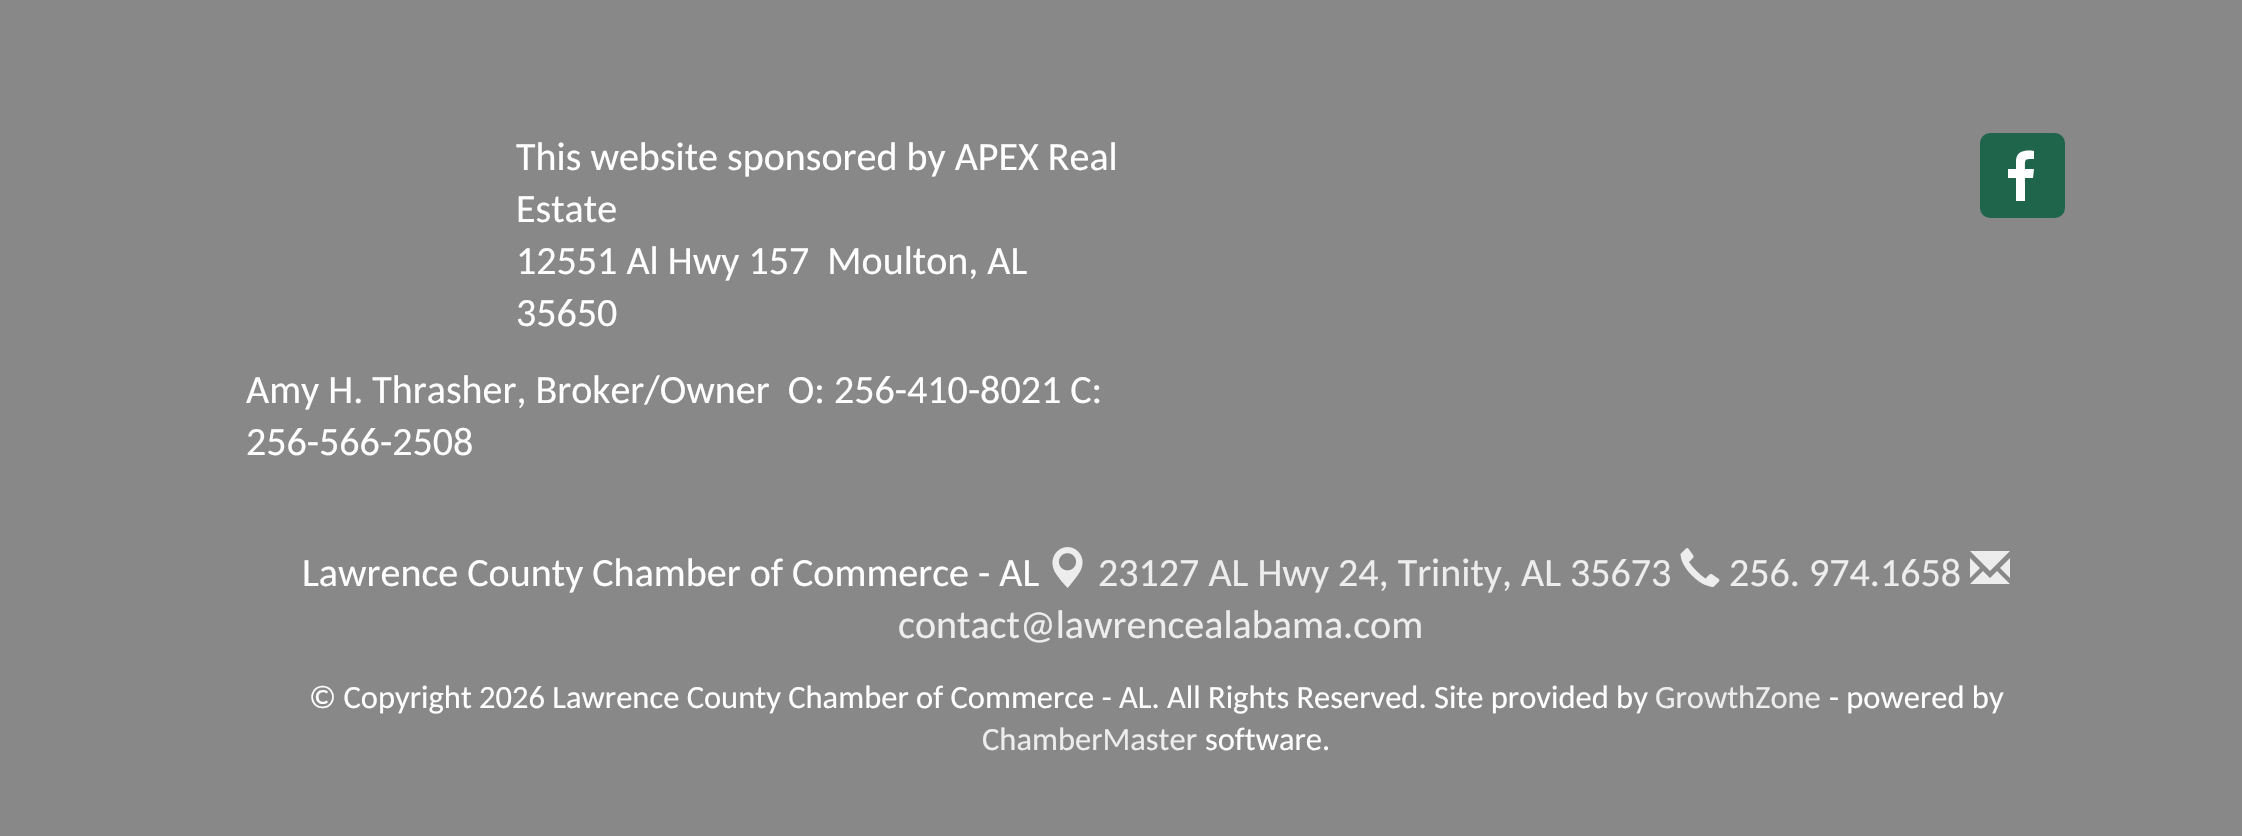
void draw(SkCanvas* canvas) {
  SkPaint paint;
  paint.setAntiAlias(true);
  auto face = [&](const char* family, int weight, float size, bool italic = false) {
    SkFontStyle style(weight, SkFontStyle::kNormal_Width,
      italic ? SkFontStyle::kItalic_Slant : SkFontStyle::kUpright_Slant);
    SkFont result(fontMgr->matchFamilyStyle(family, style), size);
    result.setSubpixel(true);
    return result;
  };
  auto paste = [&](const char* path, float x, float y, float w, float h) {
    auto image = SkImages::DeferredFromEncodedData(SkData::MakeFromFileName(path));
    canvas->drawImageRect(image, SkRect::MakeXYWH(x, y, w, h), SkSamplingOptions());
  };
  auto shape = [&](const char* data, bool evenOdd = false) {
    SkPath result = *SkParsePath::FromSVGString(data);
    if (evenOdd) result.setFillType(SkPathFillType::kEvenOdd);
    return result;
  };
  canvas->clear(0xff888888);
  paint.setColor(0xff1f654b);
  canvas->drawRoundRect(SkRect::MakeXYWH(1981.5f, 134.5f, 82, 82), 8.5f, 8.5f, paint);
  paint.setStroke(true);
  paint.setStrokeWidth(3);
  canvas->drawRoundRect(SkRect::MakeXYWH(1981.5f, 134.5f, 82, 82), 8.5f, 8.5f, paint);
  paint.setStroke(false);
  paint.setColor(0xffffffff);
  canvas->drawPath(shape("M2034 151V159C2024 159 2025 159 2025 169H2034L2033 178H2025V201H2016V178H2008V169H2016V160C2017 150 2027 150 2034 151Z"), paint);
  paste("img/1.png", 1052, 547, 31, 41);
  paste("img/2.png", 1680, 548, 40, 39);
  paint.setColor(0xffededed);
  canvas->drawPath(shape("M1970 584L1983 571L1990 578L1997 571L2010 584ZM1970 578V558L1980 568ZM1970 551L1990 571L2010 551ZM2000 568L2010 558V578Z"), paint);
  auto f0 = face("Carlito", 400, 40);
  paint.setColor(0xffffffff);
  {
    const struct { const char* s; float x, y; } items[] = {
      {"This website sponsored by APEX Real", 516, 170},
      {"Estate", 516, 222},
      {"12551 Al Hwy 157  Moulton, AL", 516, 274},
      {"35650", 516, 326},
      {"Amy H. Thrasher, Broker/Owner  O: 256-410-8021 C:", 246, 403},
      {"256-566-2508", 246, 455},
      {"Lawrence County Chamber of Commerce - AL", 302, 586},
    };
    for (auto [s, x, y] : items) {
      canvas->drawString(s, x, y, f0, paint);
    }
  }
  paint.setColor(0xffededed);
  {
    const struct { const char* s; float x, y; } items[] = {
      {"23127 AL Hwy 24, Trinity, AL 35673", 1098, 586},
      {"256. 974.1658", 1729, 586},
      {"contact@lawrencealabama.com", 898, 638},
    };
    for (auto [s, x, y] : items) {
      canvas->drawString(s, x, y, f0, paint);
    }
  }
  auto f1 = face("Carlito", 400, 32.5f);
  paint.setColor(0xffffffff);
  canvas->drawString("© Copyright 2026 Lawrence County Chamber of Commerce - AL. All Rights Reserved. Site provided by", 309, 708, f1, paint);
  paint.setColor(0xffededed);
  canvas->drawString("GrowthZone", 1655, 708, f1, paint);
  paint.setColor(0xffffffff);
  canvas->drawString("- powered by", 1829, 708, f1, paint);
  paint.setColor(0xffededed);
  canvas->drawString("ChamberMaster", 982, 750, f1, paint);
  paint.setColor(0xffffffff);
  canvas->drawString("software.", 1205, 750, f1, paint);
}
